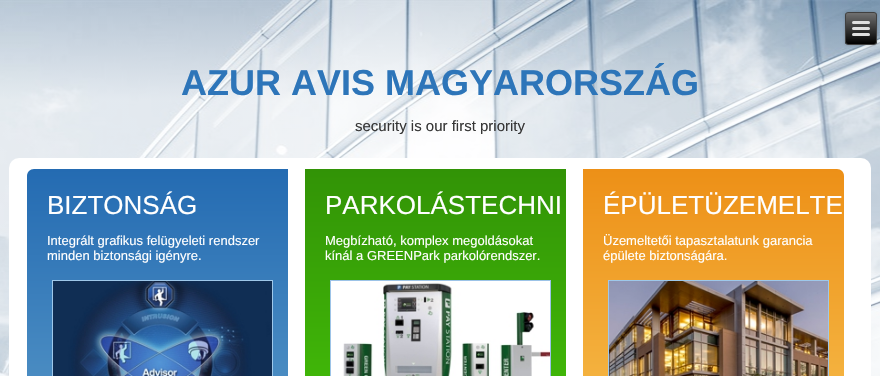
void draw(SkCanvas* canvas) {
  SkPaint paint;
  paint.setAntiAlias(true);
  auto face = [&](const char* family, int weight, float size, bool italic = false) {
    SkFontStyle style(weight, SkFontStyle::kNormal_Width,
      italic ? SkFontStyle::kItalic_Slant : SkFontStyle::kUpright_Slant);
    SkFont result(fontMgr->matchFamilyStyle(family, style), size);
    result.setSubpixel(true);
    return result;
  };
  auto paste = [&](const char* path, float x, float y, float w, float h) {
    auto image = SkImages::DeferredFromEncodedData(SkData::MakeFromFileName(path));
    canvas->drawImageRect(image, SkRect::MakeXYWH(x, y, w, h), SkSamplingOptions());
  };
  auto shape = [&](const char* data, bool evenOdd = false) {
    SkPath result = *SkParsePath::FromSVGString(data);
    if (evenOdd) result.setFillType(SkPathFillType::kEvenOdd);
    return result;
  };
  canvas->clear(0xffffffff);
  paste("img/1.png", 0, 0, 880, 376);
  paint.setColor(0x33000000);
  paint.setMaskFilter(SkMaskFilter::MakeBlur(kNormal_SkBlurStyle, 1.5f));
  canvas->drawRoundRect(SkRect::MakeXYWH(845, 12, 32, 33), 3, 3, paint);
  paint.setMaskFilter(nullptr);
  canvas->save();
  canvas->clipPath(shape("M848 12H874C875.5 12 877 13.5 877 15V42C877 43.5 875.5 45 874 45H848C846.5 45 845 43.5 845 42V15C845 13.5 846.5 12 848 12Z"), true);
  {
    const SkColor colors[] = {0xff707070, 0xff000000};
    const float stops[] = {0, 1};
    const SkPoint ends[] = {{861, 13}, {861, 44}};
    paint.setShader(SkGradientShader::MakeLinear(ends, colors, stops, 2, SkTileMode::kClamp));
    paint.setAlpha(255);
  }
  canvas->drawRect(SkRect::MakeXYWH(845, 13, 32, 31), paint);
  canvas->restore();
  paint.setStroke(true);
  paint.setStrokeWidth(1);
  paint.setShader(nullptr);
  paint.setColor(0xff404040);
  canvas->drawRoundRect(SkRect::MakeXYWH(845.5f, 12.5f, 31, 32), 2.5f, 2.5f, paint);
  paint.setStroke(false);
  paint.setColor(0xffe0e0e0);
  canvas->drawRoundRect(SkRect::MakeXYWH(852, 21, 18, 3), 1.5f, 1.5f, paint);
  canvas->drawRoundRect(SkRect::MakeXYWH(852, 27, 18, 3), 1.5f, 1.5f, paint);
  canvas->drawRoundRect(SkRect::MakeXYWH(852, 33, 18, 3), 1.5f, 1.5f, paint);
  paint.setColor(0xffffffff);
  canvas->drawRoundRect(SkRect::MakeXYWH(9, 158, 862, 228), 10, 10, paint);
  {
    const SkColor colors[] = {0xff246bb2, 0xff4a8cc2, 0xff246bb2};
    const float stops[] = {0, 0.5f, 1};
    const SkPoint ends[] = {{27, 169}, {27, 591}};
    paint.setShader(SkGradientShader::MakeLinear(ends, colors, stops, 3, SkTileMode::kClamp));
    paint.setAlpha(255);
  }
  canvas->drawPath(shape("M34 169H288V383H34C30 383 27 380 27 376V176C27 172 30 169 34 169Z"), paint);
  paint.setStroke(true);
  paint.setShader(nullptr);
  paint.setColor(0xff9ec8ea);
  canvas->drawRect(SkRect::MakeXYWH(52.5f, 280.5f, 220, 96), paint);
  paste("img/2.png", 53, 281, 219, 95);
  paint.setStroke(false);
  {
    const SkColor colors[] = {0xff329306, 0xff40b608, 0xff329306};
    const float stops[] = {0, 0.5f, 1};
    const SkPoint ends[] = {{305, 169}, {305, 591}};
    paint.setShader(SkGradientShader::MakeLinear(ends, colors, stops, 3, SkTileMode::kClamp));
    paint.setAlpha(255);
  }
  canvas->drawRect(SkRect::MakeXYWH(305, 169, 261, 207), paint);
  paint.setStroke(true);
  paint.setShader(nullptr);
  paint.setColor(0xff9cc3e7);
  canvas->drawRect(SkRect::MakeXYWH(330.5f, 280.5f, 220, 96), paint);
  paste("img/3.png", 331, 281, 219, 95);
  paint.setStroke(false);
  {
    const SkColor colors[] = {0xffed9017, 0xfff4b23f, 0xffed9017};
    const float stops[] = {0, 0.5f, 1};
    const SkPoint ends[] = {{583, 169}, {583, 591}};
    paint.setShader(SkGradientShader::MakeLinear(ends, colors, stops, 3, SkTileMode::kClamp));
    paint.setAlpha(255);
  }
  canvas->drawPath(shape("M583 169H837C841 169 844 172 844 176V376C844 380 841 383 837 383H583Z"), paint);
  paint.setStroke(true);
  paint.setShader(nullptr);
  paint.setColor(0xff9ec8ea);
  canvas->drawRect(SkRect::MakeXYWH(608.5f, 280.5f, 220, 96), paint);
  paste("img/4.png", 609, 281, 219, 95);
  auto f0 = face("Liberation Sans", 700, 36);
  paint.setStroke(false);
  paint.setColor(0xff2d75b9);
  canvas->drawString("AZUR AVIS MAGYARORSZÁG", 181, 95, f0, paint);
  auto f1 = face("Liberation Sans", 400, 15);
  paint.setColor(0xff363636);
  canvas->drawString("security is our first priority", 355, 131, f1, paint);
  auto f2 = face("Liberation Sans", 400, 26);
  paint.setColor(0xffffffff);
  canvas->drawString("BIZTONSÁG", 47, 214, f2, paint);
  auto f3 = face("Liberation Sans", 400, 13);
  canvas->drawString("Integrált grafikus felügyeleti rendszer", 47, 245, f3, paint);
  canvas->drawString("minden biztonsági igényre.", 47, 260, f3, paint);
  canvas->drawString("PARKOLÁSTECHNI", 325, 214, f2, paint);
  canvas->drawString("Megbízható, komplex megoldásokat", 325, 245, f3, paint);
  canvas->drawString("kínál a GREENPark parkolórendszer.", 325, 260, f3, paint);
  canvas->drawString("ÉPÜLETÜZEMELTE", 603, 214, f2, paint);
  canvas->drawString("Üzemeltetői tapasztalatunk garancia", 603, 245, f3, paint);
  canvas->drawString("épülete biztonságára.", 603, 260, f3, paint);
}
